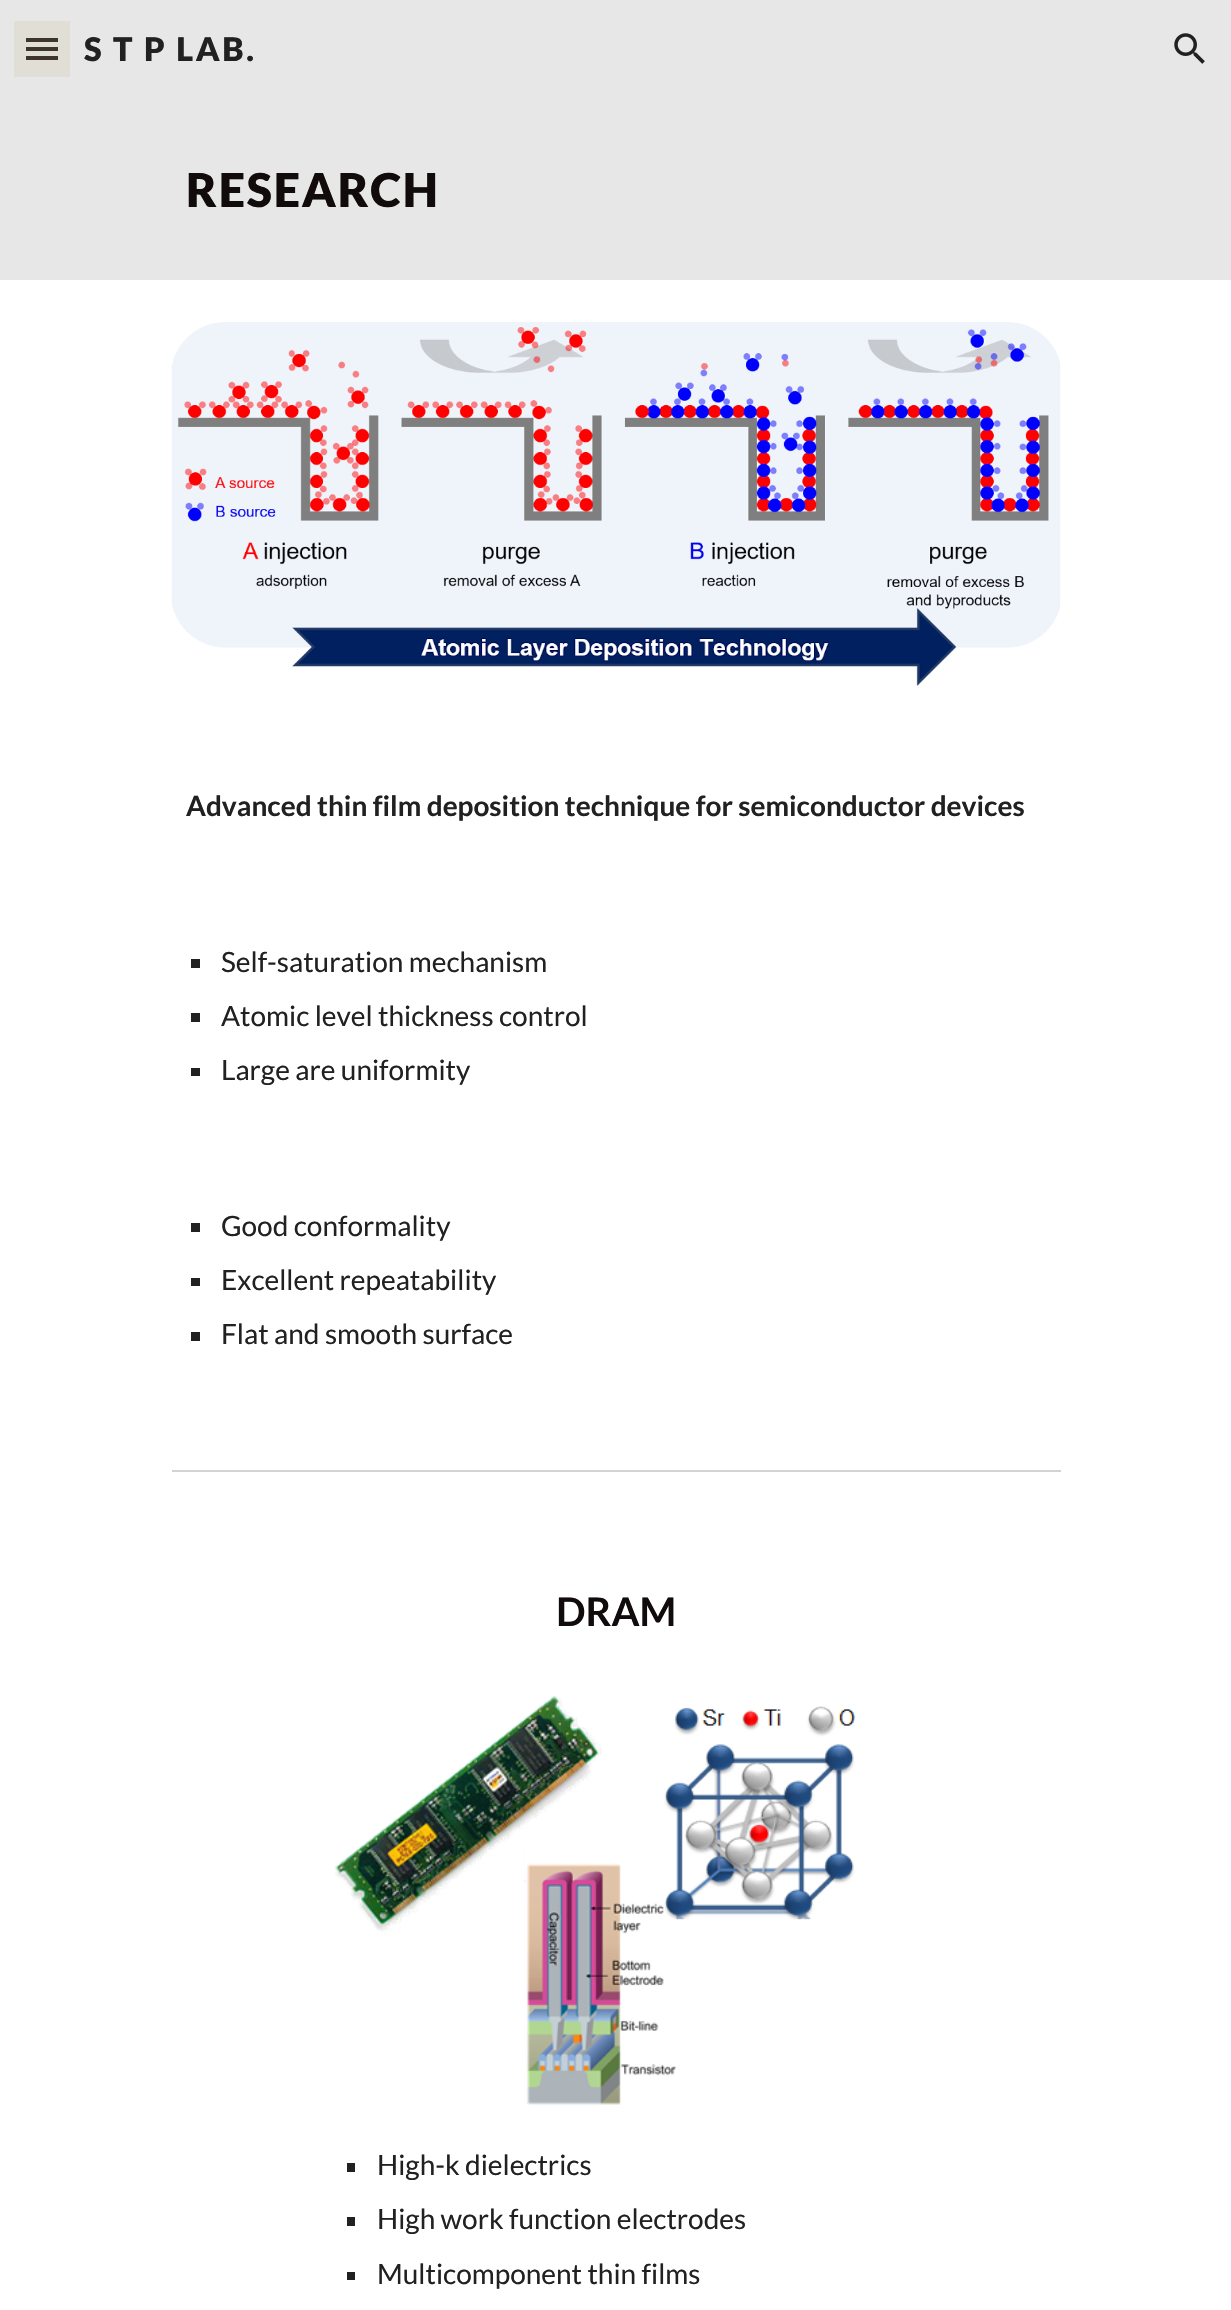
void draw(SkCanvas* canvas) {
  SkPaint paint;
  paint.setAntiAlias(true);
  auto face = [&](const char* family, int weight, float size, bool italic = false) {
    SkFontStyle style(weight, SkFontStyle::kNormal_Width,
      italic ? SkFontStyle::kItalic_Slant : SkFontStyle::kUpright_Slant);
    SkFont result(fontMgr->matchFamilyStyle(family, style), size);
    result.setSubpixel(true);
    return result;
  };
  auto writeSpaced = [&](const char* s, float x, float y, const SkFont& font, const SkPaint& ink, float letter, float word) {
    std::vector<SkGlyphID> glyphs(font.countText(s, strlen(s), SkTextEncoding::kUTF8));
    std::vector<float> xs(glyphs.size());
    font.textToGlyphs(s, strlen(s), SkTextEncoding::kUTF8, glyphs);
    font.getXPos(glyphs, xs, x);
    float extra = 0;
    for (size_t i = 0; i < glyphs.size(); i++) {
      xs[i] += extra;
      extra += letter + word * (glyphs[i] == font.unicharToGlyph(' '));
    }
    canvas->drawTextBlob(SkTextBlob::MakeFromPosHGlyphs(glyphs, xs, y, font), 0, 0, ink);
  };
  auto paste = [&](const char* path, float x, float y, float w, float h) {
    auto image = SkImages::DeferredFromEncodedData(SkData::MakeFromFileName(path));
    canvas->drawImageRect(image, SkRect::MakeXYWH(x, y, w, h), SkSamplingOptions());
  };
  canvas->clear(0xffffffff);
  {
    const struct { float x, y, w, h; SkColor color; } items[] = {
      {0, 0, 1231, 280, 0xffe7e7e7},
      {14, 21, 56, 56, 0xffe1ded5},
      {26, 38, 32, 4, 0xff3d352c},
      {26, 47, 32, 4, 0xff3d352c},
      {26, 56, 32, 4, 0xff3d352c},
    };
    for (auto [x, y, w, h, color] : items) {
      paint.setColor(color);
      canvas->drawRect(SkRect::MakeXYWH(x, y, w, h), paint);
    }
  }
  paste("img/1.png", 1174, 33, 31, 31);
  paste("img/2.png", 171, 322, 890, 364);
  {
    const struct { float x, y, w, h; SkColor color; } items[] = {
      {191, 959, 9, 9, 0xff212121},
      {191, 1013, 9, 9, 0xff212121},
      {191, 1068, 9, 8, 0xff212121},
      {191, 1223, 9, 9, 0xff212121},
      {191, 1278, 9, 8, 0xff212121},
      {191, 1332, 9, 9, 0xff212121},
      {172, 1470, 889, 2, 0xffd3d3d3},
    };
    for (auto [x, y, w, h, color] : items) {
      paint.setColor(color);
      canvas->drawRect(SkRect::MakeXYWH(x, y, w, h), paint);
    }
  }
  paste("img/3.png", 335, 1695, 521, 410);
  {
    const struct { float x, y, w, h; SkColor color; } items[] = {
      {347, 2163, 8, 9, 0xff212121},
      {347, 2217, 8, 9, 0xff212121},
      {347, 2272, 8, 8, 0xff212121},
    };
    for (auto [x, y, w, h, color] : items) {
      paint.setColor(color);
      canvas->drawRect(SkRect::MakeXYWH(x, y, w, h), paint);
    }
  }
  auto f0 = face("Lato", 900, 32.5f);
  writeSpaced("S T P LAB.", 84, 61, f0, paint, 2.6f, 0);
  auto f1 = face("Lato", 900, 46.5f);
  paint.setColor(0xff110b0b);
  writeSpaced("RESEARCH", 186, 207, f1, paint, 1.75f, 0);
  auto f2 = face("Lato", 700, 28);
  paint.setColor(0xff212121);
  canvas->drawString("Advanced thin film deposition technique for semiconductor devices", 186, 816, f2, paint);
  auto f3 = face("Lato", 400, 28);
  {
    const struct { const char* s; float x, y; } items[] = {
      {"Self-saturation mechanism", 221, 972},
      {"Atomic level thickness control", 221, 1026},
      {"Large are uniformity", 221, 1080},
      {"Good conformality", 221, 1236},
      {"Excellent repeatability", 221, 1290},
      {"Flat and smooth surface", 221, 1344},
    };
    for (auto [s, x, y] : items) {
      canvas->drawString(s, x, y, f3, paint);
    }
  }
  auto f4 = face("Lato", 700, 39.5f);
  paint.setColor(0xff110b0b);
  canvas->drawString("DRAM", 556, 1626, f4, paint);
  paint.setColor(0xff212121);
  {
    const struct { const char* s; float x, y; } items[] = {
      {"High-k dielectrics", 377, 2175},
      {"High work function electrodes", 377, 2229},
      {"Multicomponent thin films", 377, 2284},
    };
    for (auto [s, x, y] : items) {
      canvas->drawString(s, x, y, f3, paint);
    }
  }
}
